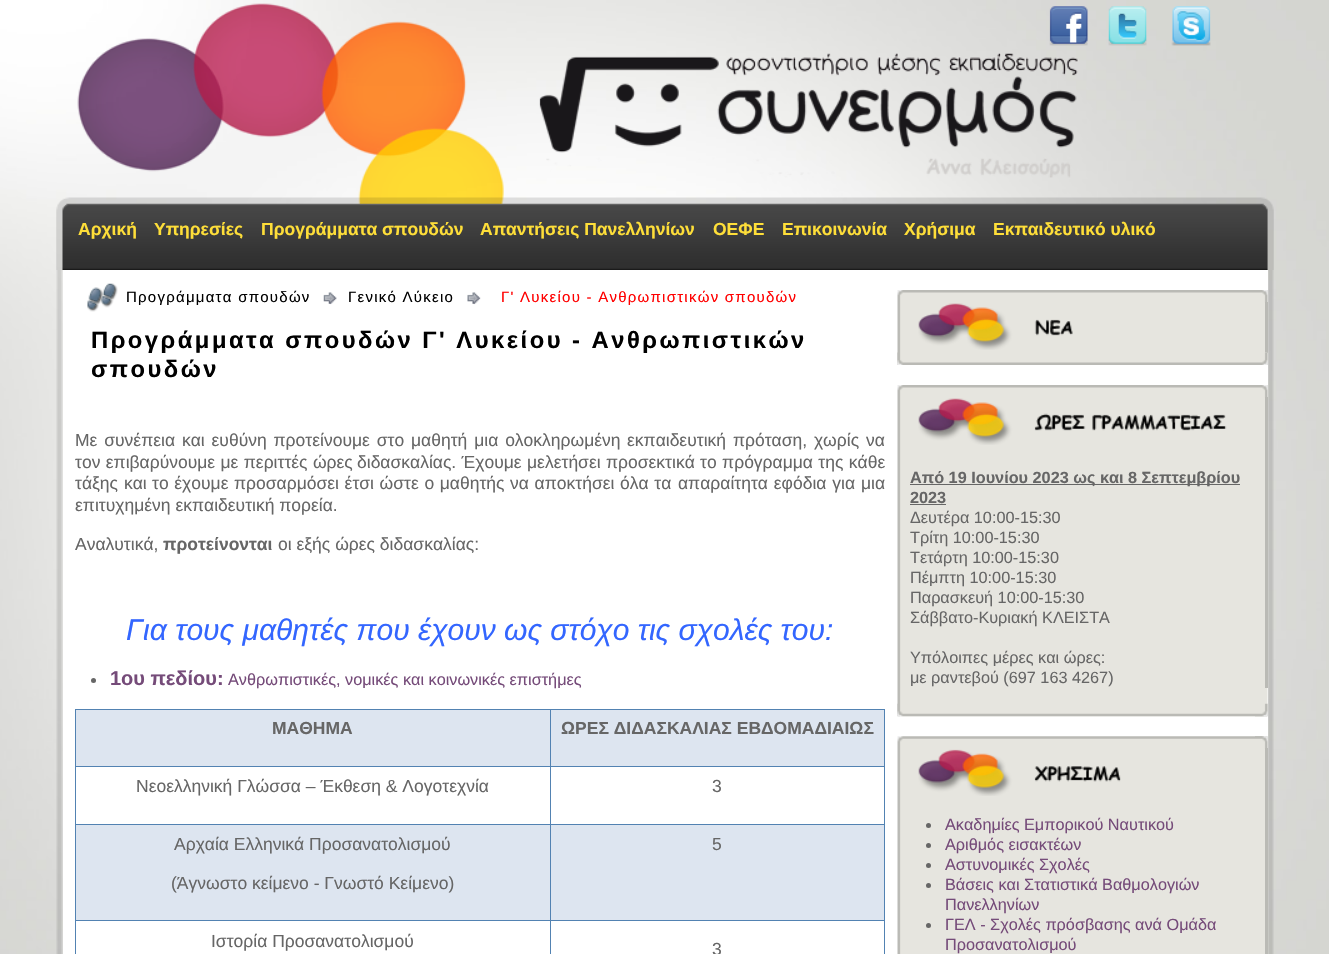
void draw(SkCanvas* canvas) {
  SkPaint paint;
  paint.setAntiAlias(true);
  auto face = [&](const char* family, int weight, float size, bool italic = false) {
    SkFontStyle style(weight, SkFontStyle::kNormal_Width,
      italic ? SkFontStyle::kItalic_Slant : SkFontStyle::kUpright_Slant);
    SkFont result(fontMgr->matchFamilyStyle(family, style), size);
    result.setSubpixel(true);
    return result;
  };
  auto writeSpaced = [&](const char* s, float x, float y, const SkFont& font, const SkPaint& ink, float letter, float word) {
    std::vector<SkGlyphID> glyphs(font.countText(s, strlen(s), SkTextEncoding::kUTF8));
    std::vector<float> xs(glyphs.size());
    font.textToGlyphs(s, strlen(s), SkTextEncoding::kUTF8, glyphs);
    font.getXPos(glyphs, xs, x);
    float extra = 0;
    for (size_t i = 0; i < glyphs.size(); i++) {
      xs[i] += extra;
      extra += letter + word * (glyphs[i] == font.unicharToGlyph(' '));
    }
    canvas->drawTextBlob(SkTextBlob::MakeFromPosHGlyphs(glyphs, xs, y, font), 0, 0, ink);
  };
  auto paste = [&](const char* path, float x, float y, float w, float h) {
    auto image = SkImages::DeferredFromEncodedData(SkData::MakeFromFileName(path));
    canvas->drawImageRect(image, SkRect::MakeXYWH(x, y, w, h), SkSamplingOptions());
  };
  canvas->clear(0xffffffff);
  paste("img/1.png", 0, 0, 1329, 954);
  paste("img/2.png", 56, 3, 1218, 267);
  paste("img/3.png", 1049, 6, 39, 40);
  paste("img/4.png", 1108, 6, 39, 40);
  paste("img/5.png", 1171, 6, 40, 40);
  paste("img/6.png", 539, 53, 540, 125);
  paste("img/7.png", 56, 270, 1218, 684);
  paint.setColor(0xffffffff);
  canvas->drawRect(SkRect::MakeXYWH(63, 270, 1205, 684), paint);
  paste("img/8.png", 87, 283, 31, 29);
  paste("img/9.png", 323, 292, 14, 13);
  paste("img/10.png", 467, 292, 14, 13);
  paint.setColor(0xff666666);
  canvas->drawCircle(93.5f, 680.5f, 2.5f, paint);
  {
    const struct { float x, y, w, h; SkColor color; } items[] = {
      {76, 710, 808, 56, 0xffdde5f0},
      {75, 709, 810, 1, 0xff5282b2},
      {75, 766, 810, 1, 0xff5282b2},
      {75, 824, 810, 1, 0xff5282b2},
      {75, 920, 810, 1, 0xff5282b2},
      {884, 920, 1, 34, 0xff5282b2},
      {884, 824, 1, 97, 0xff5282b2},
      {884, 766, 1, 59, 0xff5282b2},
      {884, 709, 1, 59, 0xff5282b2},
      {75, 920, 1, 34, 0xff5282b2},
      {75, 824, 1, 97, 0xff5282b2},
      {75, 766, 1, 59, 0xff5282b2},
      {75, 709, 1, 59, 0xff5282b2},
      {76, 825, 808, 95, 0xffdde5f0},
      {550, 709, 1, 245, 0xff5282b2},
    };
    for (auto [x, y, w, h, color] : items) {
      paint.setColor(color);
      canvas->drawRect(SkRect::MakeXYWH(x, y, w, h), paint);
    }
  }
  paste("img/11.png", 897, 290, 371, 75);
  paste("img/12.png", 1262, 290, 6, 13);
  paint.setColor(0xffbabab5);
  canvas->drawRect(SkRect::MakeXYWH(1265, 302, 3, 51), paint);
  paste("img/13.png", 918, 303, 155, 47);
  paste("img/14.png", 897, 352, 371, 13);
  paste("img/15.png", 1262, 352, 6, 13);
  paste("img/16.png", 897, 385, 371, 332);
  paste("img/12.png", 1262, 385, 6, 13);
  canvas->drawRect(SkRect::MakeXYWH(1265, 397, 3, 291), paint);
  paste("img/17.png", 918, 398, 309, 47);
  paint.setColor(0xff666666);
  canvas->drawRect(SkRect::MakeXYWH(910, 484, 330, 1), paint);
  canvas->drawRect(SkRect::MakeXYWH(910, 504, 36, 1), paint);
  paste("img/18.png", 897, 703, 371, 14);
  paste("img/19.png", 1255, 703, 13, 14);
  paste("img/20.png", 897, 736, 371, 218);
  paste("img/21.png", 1255, 736, 13, 13);
  paint.setColor(0xffbabab5);
  canvas->drawRect(SkRect::MakeXYWH(1265, 748, 3, 206), paint);
  paste("img/22.png", 918, 749, 203, 47);
  paint.setColor(0xff666666);
  canvas->drawCircle(928.5f, 825.5f, 2.5f, paint);
  canvas->drawCircle(928.5f, 845.5f, 2.5f, paint);
  canvas->drawCircle(928.5f, 865.5f, 2.5f, paint);
  canvas->drawCircle(928.5f, 885.5f, 2.5f, paint);
  canvas->drawCircle(928.5f, 925.5f, 2.5f, paint);
  auto f0 = face("Liberation Sans", 700, 17.5f);
  paint.setColor(0xfffede39);
  {
    const struct { const char* s; float x, y; } items[] = {
      {"Αρχική", 78, 235},
      {"Υπηρεσίες", 154, 235},
      {"Προγράμματα σπουδών", 261, 235},
      {"Απαντήσεις Πανελληνίων", 480, 235},
      {"ΟΕΦΕ", 713, 235},
      {"Επικοινωνία", 782, 235},
      {"Χρήσιμα", 904, 235},
      {"Εκπαιδευτικό υλικό", 993, 235},
    };
    for (auto [s, x, y] : items) {
      canvas->drawString(s, x, y, f0, paint);
    }
  }
  auto f1 = face("Liberation Sans", 400, 15);
  paint.setColor(0xff000000);
  writeSpaced("Προγράμματα σπουδών", 126, 302, f1, paint, 1.25f, 0);
  writeSpaced("Γενικό Λύκειο", 348, 302, f1, paint, 1.25f, 0);
  paint.setColor(0xffff0000);
  writeSpaced("Γ' Λυκείου - Ανθρωπιστικών σπουδών", 501, 302, f1, paint, 1.25f, 0);
  auto f2 = face("Liberation Sans", 700, 23.75f);
  paint.setColor(0xff000000);
  writeSpaced("Προγράμματα σπουδών Γ' Λυκείου - Ανθρωπιστικών", 91, 348, f2, paint, 2.5f, 0);
  writeSpaced("σπουδών", 91, 377, f2, paint, 2.5f, 0);
  auto f3 = face("Liberation Sans", 400, 17.5f);
  paint.setColor(0xff666666);
  writeSpaced("Με συνέπεια και ευθύνη προτείνουμε στο μαθητή μια ολοκληρωμένη", 75, 446, f3, paint, 0, 2);
  writeSpaced("εκπαιδευτική πρόταση, χωρίς να", 627, 446, f3, paint, 0, 2);
  writeSpaced("τον επιβαρύνουμε με περιττές ώρες", 75, 468, f3, paint, 0, 0.5f);
  writeSpaced("διδασκαλίας. Έχουμε μελετήσει προσεκτικά το πρόγραμμα της κάθε", 357, 468, f3, paint, 0, 0.5f);
  writeSpaced("τάξης και", 75, 489, f3, paint, 0, 1);
  writeSpaced("το έχουμε προσαρμόσει έτσι ώστε ο μαθητής να αποκτήσει όλα τα", 152, 489, f3, paint, 0, 0.75f);
  writeSpaced("απαραίτητα εφόδια για μια", 678, 489, f3, paint, 0, 1);
  canvas->drawString("επιτυχημένη εκπαιδευτική πορεία.", 75, 511, f3, paint);
  canvas->drawString("Αναλυτικά,", 75, 550, f3, paint);
  canvas->drawString("προτείνονται", 163, 550, f0, paint);
  canvas->drawString("οι εξής ώρες διδασκαλίας:", 278, 550, f3, paint);
  auto f4 = face("Liberation Sans", 400, 30, true);
  paint.setColor(0xff3366ff);
  canvas->drawString("Για τους μαθητές που έχουν ως στόχο τις σχολές του:", 126, 640, f4, paint);
  auto f5 = face("Liberation Sans", 700, 20);
  paint.setColor(0xff754b79);
  canvas->drawString("1ου πεδίου:", 110, 685, f5, paint);
  auto f6 = face("Liberation Sans", 400, 16.25f);
  canvas->drawString("Ανθρωπιστικές, νομικές και κοινωνικές επιστήμες", 228, 685, f6, paint);
  paint.setColor(0xff666666);
  canvas->drawString("ΜΑΘΗΜΑ", 272, 734, f0, paint);
  canvas->drawString("ΩΡΕΣ ΔΙΔΑΣΚΑΛΙΑΣ ΕΒΔΟΜΑΔΙΑΙΩΣ", 561, 734, f0, paint);
  {
    const struct { const char* s; float x, y; } items[] = {
      {"Νεοελληνική Γλώσσα – Έκθεση & Λογοτεχνία", 136, 792},
      {"3", 712, 792},
      {"Αρχαία Ελληνικά Προσανατολισμού", 174, 850},
      {"(Άγνωστο κείμενο - Γνωστό Κείμενο)", 171, 889},
      {"5", 712, 850},
      {"Ιστορία Προσανατολισμού", 211, 947},
      {"3", 712, 955},
    };
    for (auto [s, x, y] : items) {
      canvas->drawString(s, x, y, f3, paint);
    }
  }
  auto f7 = face("Liberation Sans", 700, 16.25f);
  canvas->drawString("Από 19 Ιουνίου 2023 ως και 8 Σεπτεμβρίου", 910, 483, f7, paint);
  canvas->drawString("2023", 910, 503, f7, paint);
  {
    const struct { const char* s; float x, y; } items[] = {
      {"Δευτέρα 10:00-15:30", 910, 523},
      {"Τρίτη 10:00-15:30", 910, 543},
      {"Τετάρτη 10:00-15:30", 910, 563},
      {"Πέμπτη 10:00-15:30", 910, 583},
      {"Παρασκευή 10:00-15:30", 910, 603},
      {"Σάββατο-Κυριακή ΚΛΕΙΣΤΑ", 910, 623},
      {"Υπόλοιπες μέρες και ώρες:", 910, 663},
      {"με ραντεβού (697 163 4267)", 910, 683},
    };
    for (auto [s, x, y] : items) {
      canvas->drawString(s, x, y, f6, paint);
    }
  }
  paint.setColor(0xff754b79);
  {
    const struct { const char* s; float x, y; } items[] = {
      {"Ακαδημίες Εμπορικού Ναυτικού", 945, 830},
      {"Αριθμός εισακτέων", 945, 850},
      {"Αστυνομικές Σχολές", 945, 870},
      {"Βάσεις και Στατιστικά Βαθμολογιών", 945, 890},
      {"Πανελληνίων", 945, 910},
      {"ΓΕΛ - Σχολές πρόσβασης ανά Ομάδα", 945, 930},
      {"Προσανατολισμού", 945, 950},
    };
    for (auto [s, x, y] : items) {
      canvas->drawString(s, x, y, f6, paint);
    }
  }
}
